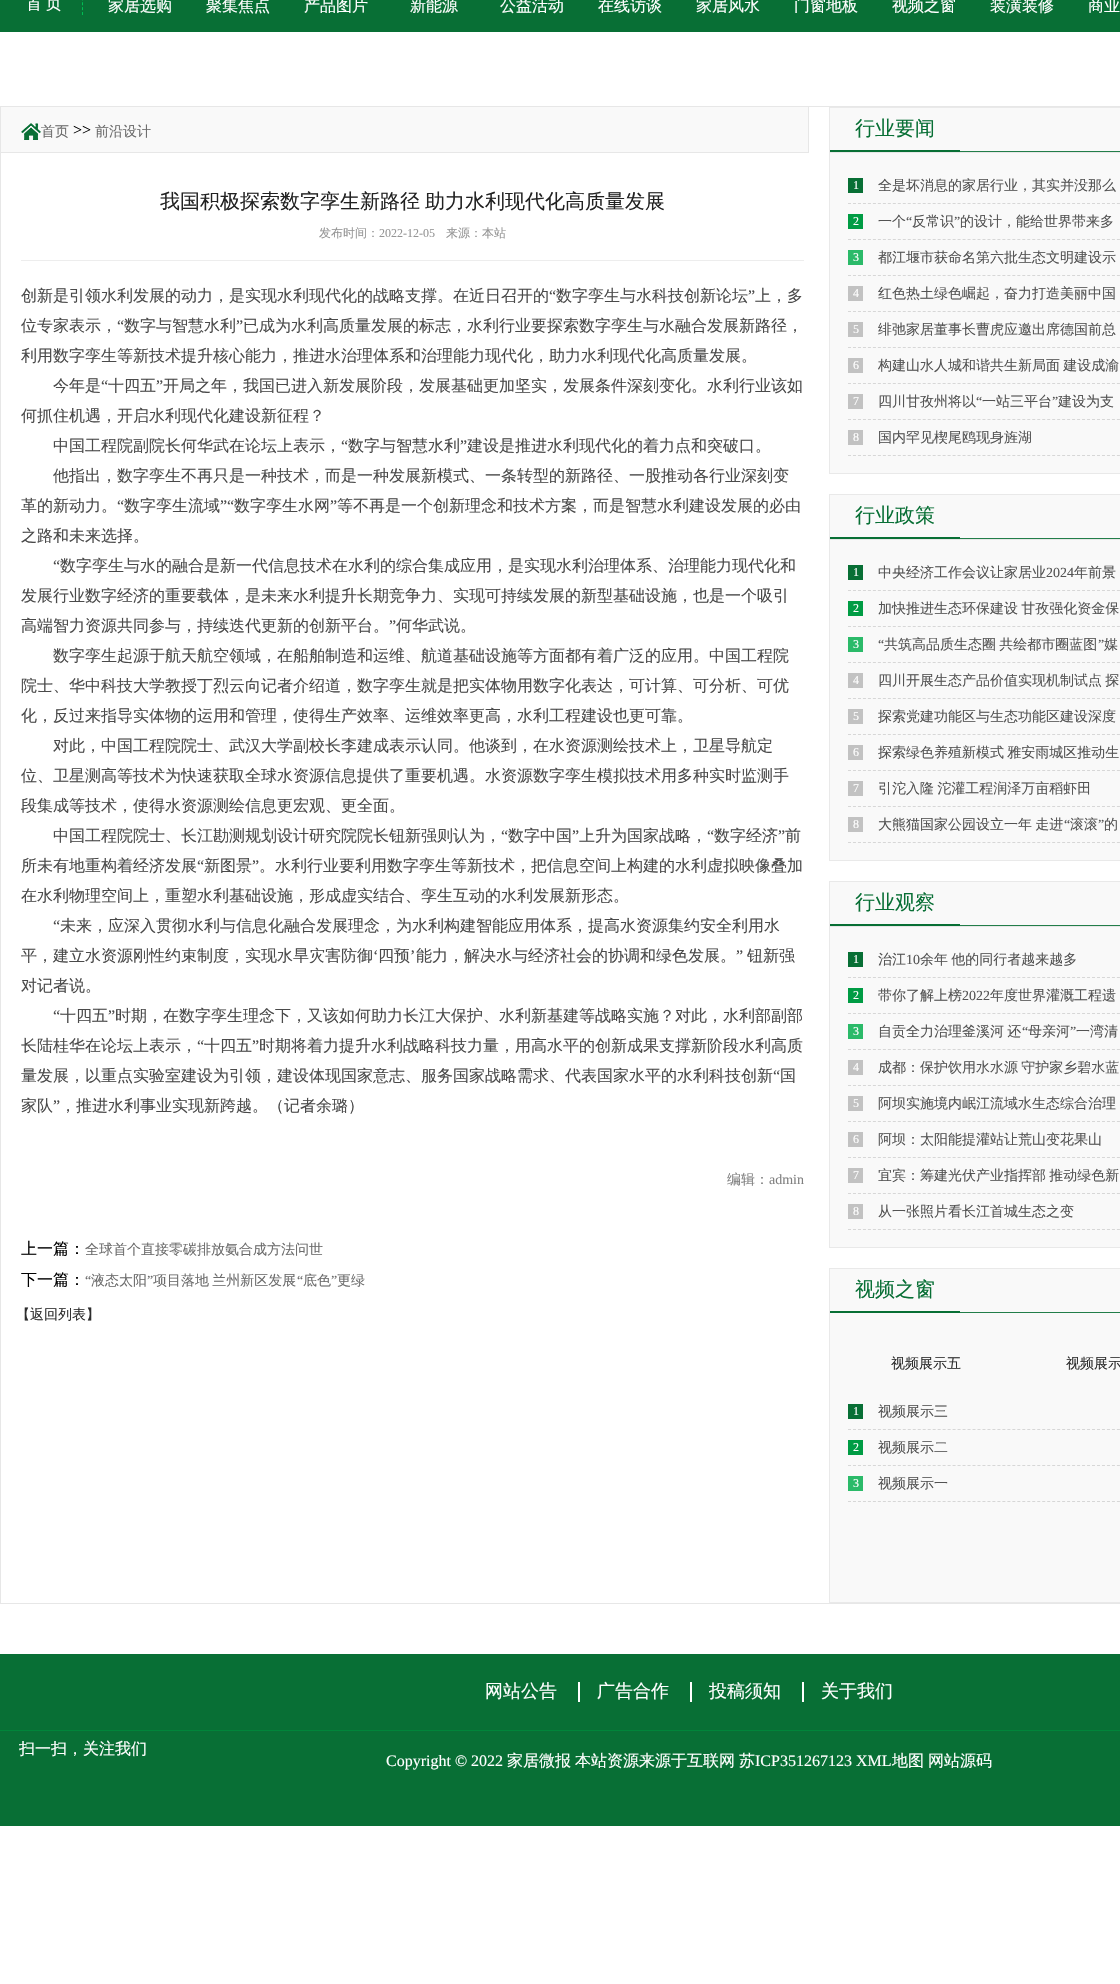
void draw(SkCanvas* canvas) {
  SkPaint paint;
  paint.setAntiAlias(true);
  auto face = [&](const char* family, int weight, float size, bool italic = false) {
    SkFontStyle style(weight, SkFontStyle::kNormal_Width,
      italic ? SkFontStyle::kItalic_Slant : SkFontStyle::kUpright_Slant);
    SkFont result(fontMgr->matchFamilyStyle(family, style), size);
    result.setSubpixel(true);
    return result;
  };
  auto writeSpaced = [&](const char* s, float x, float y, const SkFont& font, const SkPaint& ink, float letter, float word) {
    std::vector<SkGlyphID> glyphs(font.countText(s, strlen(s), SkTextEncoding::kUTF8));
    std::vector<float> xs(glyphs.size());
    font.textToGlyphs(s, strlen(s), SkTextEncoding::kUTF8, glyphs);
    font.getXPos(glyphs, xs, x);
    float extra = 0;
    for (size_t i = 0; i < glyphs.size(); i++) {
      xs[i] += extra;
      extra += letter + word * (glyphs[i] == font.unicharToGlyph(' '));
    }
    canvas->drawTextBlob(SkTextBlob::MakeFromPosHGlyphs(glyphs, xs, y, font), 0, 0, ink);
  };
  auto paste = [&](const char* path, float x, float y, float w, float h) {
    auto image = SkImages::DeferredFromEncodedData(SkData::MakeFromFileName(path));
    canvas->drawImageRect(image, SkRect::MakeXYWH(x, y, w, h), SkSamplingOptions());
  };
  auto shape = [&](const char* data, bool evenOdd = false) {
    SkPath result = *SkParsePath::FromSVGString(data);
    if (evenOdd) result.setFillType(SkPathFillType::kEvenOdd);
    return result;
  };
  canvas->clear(0xffffffff);
  paint.setColor(0xff086f35);
  canvas->drawRect(SkRect::MakeXYWH(0, 0, 1120, 32), paint);
  paint.setStroke(true);
  paint.setStrokeWidth(1);
  paint.setColor(0xff00be53);
  paint.setPathEffect(SkDashPathEffect::Make({{3, 1.88f}}, 0));
  canvas->drawPath(shape("M82.5-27V15"), paint);
  paint.setPathEffect(nullptr);
  paint.setColor(0xffe7e7e7);
  canvas->drawRect(SkRect::MakeXYWH(0.5f, 106.5f, 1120, 1497), paint);
  paint.setStroke(false);
  {
    const struct { float x, y, w, h; SkColor color; } items[] = {
      {1, 107, 807, 45, 0xfff9f9f9},
      {808, 107, 1, 46, 0xffe7e7e7},
      {1, 152, 808, 1, 0xffe7e7e7},
    };
    for (auto [x, y, w, h, color] : items) {
      paint.setColor(color);
      canvas->drawRect(SkRect::MakeXYWH(x, y, w, h), paint);
    }
  }
  paste("img/1.png", 21, 123, 20, 17);
  paint.setColor(0xffededed);
  canvas->drawRect(SkRect::MakeXYWH(21, 260, 783, 1), paint);
  paint.setColor(0xfff9f9f9);
  canvas->drawRect(SkRect::MakeXYWH(829.5f, 107.5f, 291, 366), paint);
  paint.setStroke(true);
  paint.setColor(0xffe9e9e9);
  canvas->drawRect(SkRect::MakeXYWH(829.5f, 107.5f, 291, 366), paint);
  paint.setStroke(false);
  {
    const struct { float x, y, w, h; SkColor color; } items[] = {
      {960, 151, 160, 1, 0xff227e4a},
      {830, 150, 130, 2, 0xff086f35},
      {830, 152, 290, 1, 0xffe7e7e7},
    };
    for (auto [x, y, w, h, color] : items) {
      paint.setColor(color);
      canvas->drawRect(SkRect::MakeXYWH(x, y, w, h), paint);
    }
  }
  paint.setStroke(true);
  paint.setColor(0xffd7d7d7);
  paint.setPathEffect(SkDashPathEffect::Make({{3, 1.98f}}, 0));
  canvas->drawPath(shape("M848 203.5H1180"), paint);
  paint.setPathEffect(nullptr);
  paint.setStroke(false);
  paint.setColor(0xff086f35);
  canvas->drawRect(SkRect::MakeXYWH(848, 178, 15, 15), paint);
  paint.setStroke(true);
  paint.setColor(0xffd7d7d7);
  paint.setPathEffect(SkDashPathEffect::Make({{3, 1.98f}}, 0));
  canvas->drawPath(shape("M848 239.5H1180"), paint);
  paint.setPathEffect(nullptr);
  paint.setStroke(false);
  paint.setColor(0xff009c44);
  canvas->drawRect(SkRect::MakeXYWH(848, 214, 15, 15), paint);
  paint.setStroke(true);
  paint.setColor(0xffd7d7d7);
  paint.setPathEffect(SkDashPathEffect::Make({{3, 1.98f}}, 0));
  canvas->drawPath(shape("M848 275.5H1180"), paint);
  paint.setPathEffect(nullptr);
  paint.setStroke(false);
  paint.setColor(0xff2bba69);
  canvas->drawRect(SkRect::MakeXYWH(848, 250, 15, 15), paint);
  paint.setStroke(true);
  paint.setColor(0xffd7d7d7);
  paint.setPathEffect(SkDashPathEffect::Make({{3, 1.98f}}, 0));
  canvas->drawPath(shape("M848 311.5H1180"), paint);
  paint.setPathEffect(nullptr);
  paint.setStroke(false);
  paint.setColor(0xffc2c2c2);
  canvas->drawRect(SkRect::MakeXYWH(848, 286, 15, 15), paint);
  paint.setStroke(true);
  paint.setColor(0xffd7d7d7);
  paint.setPathEffect(SkDashPathEffect::Make({{3, 1.98f}}, 0));
  canvas->drawPath(shape("M848 347.5H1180"), paint);
  paint.setPathEffect(nullptr);
  paint.setStroke(false);
  paint.setColor(0xffc2c2c2);
  canvas->drawRect(SkRect::MakeXYWH(848, 322, 15, 15), paint);
  paint.setStroke(true);
  paint.setColor(0xffd7d7d7);
  paint.setPathEffect(SkDashPathEffect::Make({{3, 1.98f}}, 0));
  canvas->drawPath(shape("M848 383.5H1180"), paint);
  paint.setPathEffect(nullptr);
  paint.setStroke(false);
  paint.setColor(0xffc2c2c2);
  canvas->drawRect(SkRect::MakeXYWH(848, 358, 15, 15), paint);
  paint.setStroke(true);
  paint.setColor(0xffd7d7d7);
  paint.setPathEffect(SkDashPathEffect::Make({{3, 1.98f}}, 0));
  canvas->drawPath(shape("M848 419.5H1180"), paint);
  paint.setPathEffect(nullptr);
  paint.setStroke(false);
  paint.setColor(0xffc2c2c2);
  canvas->drawRect(SkRect::MakeXYWH(848, 394, 15, 15), paint);
  paint.setStroke(true);
  paint.setColor(0xffd7d7d7);
  paint.setPathEffect(SkDashPathEffect::Make({{3, 1.98f}}, 0));
  canvas->drawPath(shape("M848 455.5H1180"), paint);
  paint.setPathEffect(nullptr);
  paint.setStroke(false);
  paint.setColor(0xffc2c2c2);
  canvas->drawRect(SkRect::MakeXYWH(848, 430, 15, 15), paint);
  paint.setColor(0xfff9f9f9);
  canvas->drawRect(SkRect::MakeXYWH(829.5f, 494.5f, 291, 366), paint);
  paint.setStroke(true);
  paint.setColor(0xffe9e9e9);
  canvas->drawRect(SkRect::MakeXYWH(829.5f, 494.5f, 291, 366), paint);
  paint.setStroke(false);
  {
    const struct { float x, y, w, h; SkColor color; } items[] = {
      {960, 538, 160, 1, 0xff227e4a},
      {830, 537, 130, 2, 0xff086f35},
      {830, 539, 290, 1, 0xffe7e7e7},
    };
    for (auto [x, y, w, h, color] : items) {
      paint.setColor(color);
      canvas->drawRect(SkRect::MakeXYWH(x, y, w, h), paint);
    }
  }
  paint.setStroke(true);
  paint.setColor(0xffd7d7d7);
  paint.setPathEffect(SkDashPathEffect::Make({{3, 1.98f}}, 0));
  canvas->drawPath(shape("M848 590.5H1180"), paint);
  paint.setPathEffect(nullptr);
  paint.setStroke(false);
  paint.setColor(0xff086f35);
  canvas->drawRect(SkRect::MakeXYWH(848, 565, 15, 15), paint);
  paint.setStroke(true);
  paint.setColor(0xffd7d7d7);
  paint.setPathEffect(SkDashPathEffect::Make({{3, 1.98f}}, 0));
  canvas->drawPath(shape("M848 626.5H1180"), paint);
  paint.setPathEffect(nullptr);
  paint.setStroke(false);
  paint.setColor(0xff009c44);
  canvas->drawRect(SkRect::MakeXYWH(848, 601, 15, 15), paint);
  paint.setStroke(true);
  paint.setColor(0xffd7d7d7);
  paint.setPathEffect(SkDashPathEffect::Make({{3, 1.98f}}, 0));
  canvas->drawPath(shape("M848 662.5H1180"), paint);
  paint.setPathEffect(nullptr);
  paint.setStroke(false);
  paint.setColor(0xff2bba69);
  canvas->drawRect(SkRect::MakeXYWH(848, 637, 15, 15), paint);
  paint.setStroke(true);
  paint.setColor(0xffd7d7d7);
  paint.setPathEffect(SkDashPathEffect::Make({{3, 1.98f}}, 0));
  canvas->drawPath(shape("M848 698.5H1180"), paint);
  paint.setPathEffect(nullptr);
  paint.setStroke(false);
  paint.setColor(0xffc2c2c2);
  canvas->drawRect(SkRect::MakeXYWH(848, 673, 15, 15), paint);
  paint.setStroke(true);
  paint.setColor(0xffd7d7d7);
  paint.setPathEffect(SkDashPathEffect::Make({{3, 1.98f}}, 0));
  canvas->drawPath(shape("M848 734.5H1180"), paint);
  paint.setPathEffect(nullptr);
  paint.setStroke(false);
  paint.setColor(0xffc2c2c2);
  canvas->drawRect(SkRect::MakeXYWH(848, 709, 15, 15), paint);
  paint.setStroke(true);
  paint.setColor(0xffd7d7d7);
  paint.setPathEffect(SkDashPathEffect::Make({{3, 1.98f}}, 0));
  canvas->drawPath(shape("M848 770.5H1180"), paint);
  paint.setPathEffect(nullptr);
  paint.setStroke(false);
  paint.setColor(0xffc2c2c2);
  canvas->drawRect(SkRect::MakeXYWH(848, 745, 15, 15), paint);
  paint.setStroke(true);
  paint.setColor(0xffd7d7d7);
  paint.setPathEffect(SkDashPathEffect::Make({{3, 1.98f}}, 0));
  canvas->drawPath(shape("M848 806.5H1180"), paint);
  paint.setPathEffect(nullptr);
  paint.setStroke(false);
  paint.setColor(0xffc2c2c2);
  canvas->drawRect(SkRect::MakeXYWH(848, 781, 15, 15), paint);
  paint.setStroke(true);
  paint.setColor(0xffd7d7d7);
  paint.setPathEffect(SkDashPathEffect::Make({{3, 1.98f}}, 0));
  canvas->drawPath(shape("M848 842.5H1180"), paint);
  paint.setPathEffect(nullptr);
  paint.setStroke(false);
  paint.setColor(0xffc2c2c2);
  canvas->drawRect(SkRect::MakeXYWH(848, 817, 15, 15), paint);
  paint.setColor(0xfff9f9f9);
  canvas->drawRect(SkRect::MakeXYWH(829.5f, 881.5f, 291, 366), paint);
  paint.setStroke(true);
  paint.setColor(0xffe9e9e9);
  canvas->drawRect(SkRect::MakeXYWH(829.5f, 881.5f, 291, 366), paint);
  paint.setStroke(false);
  {
    const struct { float x, y, w, h; SkColor color; } items[] = {
      {960, 925, 160, 1, 0xff227e4a},
      {830, 924, 130, 2, 0xff086f35},
      {830, 926, 290, 1, 0xffe7e7e7},
    };
    for (auto [x, y, w, h, color] : items) {
      paint.setColor(color);
      canvas->drawRect(SkRect::MakeXYWH(x, y, w, h), paint);
    }
  }
  paint.setStroke(true);
  paint.setColor(0xffd7d7d7);
  paint.setPathEffect(SkDashPathEffect::Make({{3, 1.98f}}, 0));
  canvas->drawPath(shape("M848 977.5H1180"), paint);
  paint.setPathEffect(nullptr);
  paint.setStroke(false);
  paint.setColor(0xff086f35);
  canvas->drawRect(SkRect::MakeXYWH(848, 952, 15, 15), paint);
  paint.setStroke(true);
  paint.setColor(0xffd7d7d7);
  paint.setPathEffect(SkDashPathEffect::Make({{3, 1.98f}}, 0));
  canvas->drawPath(shape("M848 1013.5H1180"), paint);
  paint.setPathEffect(nullptr);
  paint.setStroke(false);
  paint.setColor(0xff009c44);
  canvas->drawRect(SkRect::MakeXYWH(848, 988, 15, 15), paint);
  paint.setStroke(true);
  paint.setColor(0xffd7d7d7);
  paint.setPathEffect(SkDashPathEffect::Make({{3, 1.98f}}, 0));
  canvas->drawPath(shape("M848 1049.5H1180"), paint);
  paint.setPathEffect(nullptr);
  paint.setStroke(false);
  paint.setColor(0xff2bba69);
  canvas->drawRect(SkRect::MakeXYWH(848, 1024, 15, 15), paint);
  paint.setStroke(true);
  paint.setColor(0xffd7d7d7);
  paint.setPathEffect(SkDashPathEffect::Make({{3, 1.98f}}, 0));
  canvas->drawPath(shape("M848 1085.5H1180"), paint);
  paint.setPathEffect(nullptr);
  paint.setStroke(false);
  paint.setColor(0xffc2c2c2);
  canvas->drawRect(SkRect::MakeXYWH(848, 1060, 15, 15), paint);
  paint.setStroke(true);
  paint.setColor(0xffd7d7d7);
  paint.setPathEffect(SkDashPathEffect::Make({{3, 1.98f}}, 0));
  canvas->drawPath(shape("M848 1121.5H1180"), paint);
  paint.setPathEffect(nullptr);
  paint.setStroke(false);
  paint.setColor(0xffc2c2c2);
  canvas->drawRect(SkRect::MakeXYWH(848, 1096, 15, 15), paint);
  paint.setStroke(true);
  paint.setColor(0xffd7d7d7);
  paint.setPathEffect(SkDashPathEffect::Make({{3, 1.98f}}, 0));
  canvas->drawPath(shape("M848 1157.5H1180"), paint);
  paint.setPathEffect(nullptr);
  paint.setStroke(false);
  paint.setColor(0xffc2c2c2);
  canvas->drawRect(SkRect::MakeXYWH(848, 1132, 15, 15), paint);
  paint.setStroke(true);
  paint.setColor(0xffd7d7d7);
  paint.setPathEffect(SkDashPathEffect::Make({{3, 1.98f}}, 0));
  canvas->drawPath(shape("M848 1193.5H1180"), paint);
  paint.setPathEffect(nullptr);
  paint.setStroke(false);
  paint.setColor(0xffc2c2c2);
  canvas->drawRect(SkRect::MakeXYWH(848, 1168, 15, 15), paint);
  paint.setStroke(true);
  paint.setColor(0xffd7d7d7);
  paint.setPathEffect(SkDashPathEffect::Make({{3, 1.98f}}, 0));
  canvas->drawPath(shape("M848 1229.5H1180"), paint);
  paint.setPathEffect(nullptr);
  paint.setStroke(false);
  paint.setColor(0xffc2c2c2);
  canvas->drawRect(SkRect::MakeXYWH(848, 1204, 15, 15), paint);
  paint.setColor(0xfff9f9f9);
  canvas->drawRect(SkRect::MakeXYWH(829.5f, 1268.5f, 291, 334), paint);
  paint.setStroke(true);
  paint.setColor(0xffe9e9e9);
  canvas->drawRect(SkRect::MakeXYWH(829.5f, 1268.5f, 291, 334), paint);
  paint.setStroke(false);
  paint.setColor(0xff227e4a);
  canvas->drawRect(SkRect::MakeXYWH(960, 1312, 160, 1), paint);
  paint.setColor(0xff086f35);
  canvas->drawRect(SkRect::MakeXYWH(830, 1311, 130, 2), paint);
  paint.setStroke(true);
  paint.setColor(0xffd7d7d7);
  paint.setPathEffect(SkDashPathEffect::Make({{3, 1.98f}}, 0));
  canvas->drawPath(shape("M848 1429.5H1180"), paint);
  paint.setPathEffect(nullptr);
  paint.setStroke(false);
  paint.setColor(0xff086f35);
  canvas->drawRect(SkRect::MakeXYWH(848, 1404, 15, 15), paint);
  paint.setStroke(true);
  paint.setColor(0xffd7d7d7);
  paint.setPathEffect(SkDashPathEffect::Make({{3, 1.98f}}, 0));
  canvas->drawPath(shape("M848 1465.5H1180"), paint);
  paint.setPathEffect(nullptr);
  paint.setStroke(false);
  paint.setColor(0xff009c44);
  canvas->drawRect(SkRect::MakeXYWH(848, 1440, 15, 15), paint);
  paint.setStroke(true);
  paint.setColor(0xffd7d7d7);
  paint.setPathEffect(SkDashPathEffect::Make({{3, 1.98f}}, 0));
  canvas->drawPath(shape("M848 1501.5H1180"), paint);
  paint.setPathEffect(nullptr);
  paint.setStroke(false);
  {
    const struct { float x, y, w, h; SkColor color; } items[] = {
      {848, 1476, 15, 15, 0xff2bba69},
      {0, 1654, 1120, 76, 0xff086f35},
      {0, 1730, 1120, 1, 0xff00853a},
      {578, 1682, 2, 20, 0xffffffff},
      {690, 1682, 2, 20, 0xffffffff},
      {802, 1682, 2, 20, 0xffffffff},
      {0, 1731, 1120, 95, 0xff086f35},
    };
    for (auto [x, y, w, h, color] : items) {
      paint.setColor(color);
      canvas->drawRect(SkRect::MakeXYWH(x, y, w, h), paint);
    }
  }
  auto f0 = face("WenQuanYi Zen Hei", 500, 16);
  paint.setColor(0xffffffff);
  writeSpaced("首 页", 26, 9, f0, paint, 0, -1);
  {
    const struct { const char* s; float x, y; } items[] = {
      {"家居选购", 108, 11},
      {"聚集焦点", 206, 11},
      {"产品图片", 304, 11},
      {"新能源", 410, 11},
      {"公益活动", 500, 11},
      {"在线访谈", 598, 11},
      {"家居风水", 696, 11},
      {"门窗地板", 794, 11},
      {"视频之窗", 892, 11},
      {"装潢装修", 990, 11},
      {"商业", 1088, 11},
    };
    for (auto [s, x, y] : items) {
      canvas->drawString(s, x, y, f0, paint);
    }
  }
  auto f1 = face("WenQuanYi Zen Hei", 500, 14);
  paint.setColor(0xff6c6c6c);
  canvas->drawString("首页", 41, 136, f1, paint);
  auto f2 = face("Liberation Serif", 400, 16);
  paint.setColor(0xff000000);
  canvas->drawString(">>", 73, 135, f2, paint);
  paint.setColor(0xff6c6c6c);
  canvas->drawString("前沿设计", 95, 136, f1, paint);
  auto f3 = face("WenQuanYi Zen Hei", 500, 20);
  paint.setColor(0xff222222);
  writeSpaced("我国积极探索数字孪生新路径 助力水利现代化高质量发展", 160, 208, f3, paint, 0, -1);
  auto f4 = face("WenQuanYi Zen Hei", 500, 12);
  paint.setColor(0xff959595);
  canvas->drawString("发布时间：", 319, 237, f4, paint);
  auto f5 = face("Liberation Serif", 400, 12);
  canvas->drawString("2022-12-05", 379, 237, f5, paint);
  canvas->drawString("来源：本站", 446, 237, f4, paint);
  paint.setColor(0xff4a4a4a);
  canvas->drawString("创新是引领水利发展的动力，是实现水利现代化的战略支撑。在近日召开的", 21, 301, f0, paint);
  canvas->drawString("“", 549, 301, f2, paint);
  canvas->drawString("数字孪生与水科技创新论坛", 556, 301, f0, paint);
  canvas->drawString("”", 748, 301, f2, paint);
  canvas->drawString("上，多", 755, 301, f0, paint);
  canvas->drawString("位专家表示，", 21, 331, f0, paint);
  canvas->drawString("“", 117, 331, f2, paint);
  canvas->drawString("数字与智慧水利", 124, 331, f0, paint);
  canvas->drawString("”", 236, 331, f2, paint);
  {
    const struct { const char* s; float x, y; } items[] = {
      {"已成为水利高质量发展的标志，水利行业要探索数字孪生与水融合发展新路径，", 243, 331},
      {"利用数字孪生等新技术提升核心能力，推进水治理体系和治理能力现代化，助力水利现代化高质量发展。", 21, 361},
      {"今年是", 53, 391},
    };
    for (auto [s, x, y] : items) {
      canvas->drawString(s, x, y, f0, paint);
    }
  }
  canvas->drawString("“", 101, 391, f2, paint);
  canvas->drawString("十四五", 108, 391, f0, paint);
  canvas->drawString("”", 156, 391, f2, paint);
  {
    const struct { const char* s; float x, y; } items[] = {
      {"开局之年，我国已进入新发展阶段，发展基础更加坚实，发展条件深刻变化。水利行业该如", 163, 391},
      {"何抓住机遇，开启水利现代化建设新征程？", 21, 421},
      {"中国工程院副院长何华武在论坛上表示，", 53, 451},
    };
    for (auto [s, x, y] : items) {
      canvas->drawString(s, x, y, f0, paint);
    }
  }
  canvas->drawString("“", 341, 451, f2, paint);
  canvas->drawString("数字与智慧水利", 348, 451, f0, paint);
  canvas->drawString("”", 460, 451, f2, paint);
  {
    const struct { const char* s; float x, y; } items[] = {
      {"建设是推进水利现代化的着力点和突破口。", 467, 451},
      {"他指出，数字孪生不再只是一种技术，而是一种发展新模式、一条转型的新路径、一股推动各行业深刻变", 53, 481},
      {"革的新动力。", 21, 511},
    };
    for (auto [s, x, y] : items) {
      canvas->drawString(s, x, y, f0, paint);
    }
  }
  canvas->drawString("“", 117, 511, f2, paint);
  canvas->drawString("数字孪生流域", 124, 511, f0, paint);
  canvas->drawString("”“", 220, 511, f2, paint);
  canvas->drawString("数字孪生水网", 234, 511, f0, paint);
  canvas->drawString("”", 330, 511, f2, paint);
  canvas->drawString("等不再是一个创新理念和技术方案，而是智慧水利建设发展的必由", 337, 511, f0, paint);
  canvas->drawString("之路和未来选择。", 21, 541, f0, paint);
  canvas->drawString("“", 53, 571, f2, paint);
  {
    const struct { const char* s; float x, y; } items[] = {
      {"数字孪生与水的融合是新一代信息技术在水利的综合集成应用，是实现水利治理体系、治理能力现代化和", 60, 571},
      {"发展行业数字经济的重要载体，是未来水利提升长期竞争力、实现可持续发展的新型基础设施，也是一个吸引", 21, 601},
      {"高端智力资源共同参与，持续迭代更新的创新平台。", 21, 631},
    };
    for (auto [s, x, y] : items) {
      canvas->drawString(s, x, y, f0, paint);
    }
  }
  canvas->drawString("”", 389, 631, f2, paint);
  {
    const struct { const char* s; float x, y; } items[] = {
      {"何华武说。", 396, 631},
      {"数字孪生起源于航天航空领域，在船舶制造和运维、航道基础设施等方面都有着广泛的应用。中国工程院", 53, 661},
      {"院士、华中科技大学教授丁烈云向记者介绍道，数字孪生就是把实体物用数字化表达，可计算、可分析、可优", 21, 691},
      {"化，反过来指导实体物的运用和管理，使得生产效率、运维效率更高，水利工程建设也更可靠。", 21, 721},
      {"对此，中国工程院院士、武汉大学副校长李建成表示认同。他谈到，在水资源测绘技术上，卫星导航定", 53, 751},
      {"位、卫星测高等技术为快速获取全球水资源信息提供了重要机遇。水资源数字孪生模拟技术用多种实时监测手", 21, 781},
      {"段集成等技术，使得水资源测绘信息更宏观、更全面。", 21, 811},
      {"中国工程院院士、长江勘测规划设计研究院院长钮新强则认为，", 53, 841},
    };
    for (auto [s, x, y] : items) {
      canvas->drawString(s, x, y, f0, paint);
    }
  }
  canvas->drawString("“", 501, 841, f2, paint);
  canvas->drawString("数字中国", 508, 841, f0, paint);
  canvas->drawString("”", 572, 841, f2, paint);
  canvas->drawString("上升为国家战略，", 579, 841, f0, paint);
  canvas->drawString("“", 707, 841, f2, paint);
  canvas->drawString("数字经济", 714, 841, f0, paint);
  canvas->drawString("”", 778, 841, f2, paint);
  canvas->drawString("前", 785, 841, f0, paint);
  canvas->drawString("所未有地重构着经济发展", 21, 871, f0, paint);
  canvas->drawString("“", 197, 871, f2, paint);
  canvas->drawString("新图景", 204, 871, f0, paint);
  canvas->drawString("”", 252, 871, f2, paint);
  canvas->drawString("。水利行业要利用数字孪生等新技术，把信息空间上构建的水利虚拟映像叠加", 259, 871, f0, paint);
  canvas->drawString("在水利物理空间上，重塑水利基础设施，形成虚实结合、孪生互动的水利发展新形态。", 21, 901, f0, paint);
  canvas->drawString("“", 53, 931, f2, paint);
  canvas->drawString("未来，应深入贯彻水利与信息化融合发展理念，为水利构建智能应用体系，提高水资源集约安全利用水", 60, 931, f0, paint);
  canvas->drawString("平，建立水资源刚性约束制度，实现水旱灾害防御", 21, 961, f0, paint);
  canvas->drawString("‘", 373, 961, f2, paint);
  canvas->drawString("四预", 378, 961, f0, paint);
  canvas->drawString("’", 410, 961, f2, paint);
  canvas->drawString("能力，解决水与经济社会的协调和绿色发展。", 416, 961, f0, paint);
  canvas->drawString("”", 736, 961, f2, paint);
  canvas->drawString("钮新强", 747, 961, f0, paint);
  canvas->drawString("对记者说。", 21, 991, f0, paint);
  canvas->drawString("“", 53, 1021, f2, paint);
  canvas->drawString("十四五", 60, 1021, f0, paint);
  canvas->drawString("”", 108, 1021, f2, paint);
  canvas->drawString("时期，在数字孪生理念下，又该如何助力长江大保护、水利新基建等战略实施？对此，水利部副部", 115, 1021, f0, paint);
  canvas->drawString("长陆桂华在论坛上表示，", 21, 1051, f0, paint);
  canvas->drawString("“", 197, 1051, f2, paint);
  canvas->drawString("十四五", 204, 1051, f0, paint);
  canvas->drawString("”", 252, 1051, f2, paint);
  canvas->drawString("时期将着力提升水利战略科技力量，用高水平的创新成果支撑新阶段水利高质", 259, 1051, f0, paint);
  canvas->drawString("量发展，以重点实验室建设为引领，建设体现国家意志、服务国家战略需求、代表国家水平的水利科技创新", 21, 1081, f0, paint);
  canvas->drawString("“", 773, 1081, f2, paint);
  canvas->drawString("国", 780, 1081, f0, paint);
  canvas->drawString("家队", 21, 1111, f0, paint);
  canvas->drawString("”", 53, 1111, f2, paint);
  canvas->drawString("，推进水利事业实现新跨越。（记者余璐）", 60, 1111, f0, paint);
  paint.setColor(0xff808080);
  canvas->drawString("编辑：", 727, 1184, f1, paint);
  auto f6 = face("Liberation Serif", 400, 14);
  canvas->drawString("admin", 769, 1184, f6, paint);
  paint.setColor(0xff000000);
  canvas->drawString("上一篇：", 21, 1254, f0, paint);
  paint.setColor(0xff6c6c6c);
  canvas->drawString("全球首个直接零碳排放氨合成方法问世", 85, 1254, f1, paint);
  paint.setColor(0xff000000);
  canvas->drawString("下一篇：", 21, 1285, f0, paint);
  paint.setColor(0xff6c6c6c);
  canvas->drawString("“", 85, 1285, f6, paint);
  canvas->drawString("液态太阳", 91, 1285, f1, paint);
  canvas->drawString("”", 147, 1285, f6, paint);
  writeSpaced("项目落地 兰州新区发展", 153, 1285, f1, paint, 0, -1);
  canvas->drawString("“", 297, 1285, f6, paint);
  canvas->drawString("底色", 303, 1285, f1, paint);
  canvas->drawString("”", 331, 1285, f6, paint);
  canvas->drawString("更绿", 337, 1285, f1, paint);
  paint.setColor(0xff2e2e2e);
  canvas->drawString("【返回列表】", 16, 1319, f1, paint);
  paint.setColor(0xff086f35);
  canvas->drawString("行业要闻", 855, 135, f3, paint);
  paint.setColor(0xffffffff);
  canvas->drawString("1", 853, 189, f5, paint);
  paint.setColor(0xff535353);
  canvas->drawString("全是坏消息的家居行业，其实并没那么", 878, 190, f1, paint);
  paint.setColor(0xffffffff);
  canvas->drawString("2", 853, 225, f5, paint);
  paint.setColor(0xff535353);
  canvas->drawString("一个", 878, 226, f1, paint);
  canvas->drawString("“", 906, 226, f6, paint);
  canvas->drawString("反常识", 912, 226, f1, paint);
  canvas->drawString("”", 954, 226, f6, paint);
  canvas->drawString("的设计，能给世界带来多", 960, 226, f1, paint);
  paint.setColor(0xffffffff);
  canvas->drawString("3", 853, 261, f5, paint);
  paint.setColor(0xff535353);
  canvas->drawString("都江堰市获命名第六批生态文明建设示", 878, 262, f1, paint);
  paint.setColor(0xffffffff);
  canvas->drawString("4", 853, 297, f5, paint);
  paint.setColor(0xff535353);
  canvas->drawString("红色热土绿色崛起，奋力打造美丽中国", 878, 298, f1, paint);
  paint.setColor(0xffffffff);
  canvas->drawString("5", 853, 333, f5, paint);
  paint.setColor(0xff535353);
  canvas->drawString("绯弛家居董事长曹虎应邀出席德国前总", 878, 334, f1, paint);
  paint.setColor(0xffffffff);
  canvas->drawString("6", 853, 369, f5, paint);
  paint.setColor(0xff535353);
  writeSpaced("构建山水人城和谐共生新局面 建设成渝", 878, 370, f1, paint, 0, -1);
  paint.setColor(0xffffffff);
  canvas->drawString("7", 853, 405, f5, paint);
  paint.setColor(0xff535353);
  canvas->drawString("四川甘孜州将以", 878, 406, f1, paint);
  canvas->drawString("“", 976, 406, f6, paint);
  canvas->drawString("一站三平台", 982, 406, f1, paint);
  canvas->drawString("”", 1052, 406, f6, paint);
  writeSpaced("建设为支", 1058, 406, f1, paint, 0, -1);
  paint.setColor(0xffffffff);
  canvas->drawString("8", 853, 441, f5, paint);
  paint.setColor(0xff535353);
  canvas->drawString("国内罕见楔尾鸥现身旌湖", 878, 442, f1, paint);
  paint.setColor(0xff086f35);
  canvas->drawString("行业政策", 855, 522, f3, paint);
  paint.setColor(0xffffffff);
  canvas->drawString("1", 853, 576, f5, paint);
  paint.setColor(0xff535353);
  canvas->drawString("中央经济工作会议让家居业", 878, 577, f1, paint);
  canvas->drawString("2024", 1046, 577, f6, paint);
  canvas->drawString("年前景", 1074, 577, f1, paint);
  paint.setColor(0xffffffff);
  canvas->drawString("2", 853, 612, f5, paint);
  paint.setColor(0xff535353);
  writeSpaced("加快推进生态环保建设 甘孜强化资金保", 878, 613, f1, paint, 0, -1);
  paint.setColor(0xffffffff);
  canvas->drawString("3", 853, 648, f5, paint);
  paint.setColor(0xff535353);
  canvas->drawString("“", 878, 649, f6, paint);
  writeSpaced("共筑高品质生态圈 共绘都市圈蓝图", 884, 649, f1, paint, 0, -1);
  canvas->drawString("”", 1098, 649, f6, paint);
  canvas->drawString("媒", 1104, 649, f1, paint);
  paint.setColor(0xffffffff);
  canvas->drawString("4", 853, 684, f5, paint);
  paint.setColor(0xff535353);
  writeSpaced("四川开展生态产品价值实现机制试点 探", 878, 685, f1, paint, 0, -1);
  paint.setColor(0xffffffff);
  canvas->drawString("5", 853, 720, f5, paint);
  paint.setColor(0xff535353);
  canvas->drawString("探索党建功能区与生态功能区建设深度", 878, 721, f1, paint);
  paint.setColor(0xffffffff);
  canvas->drawString("6", 853, 756, f5, paint);
  paint.setColor(0xff535353);
  writeSpaced("探索绿色养殖新模式 雅安雨城区推动生", 878, 757, f1, paint, 0, -1);
  paint.setColor(0xffffffff);
  canvas->drawString("7", 853, 792, f5, paint);
  paint.setColor(0xff535353);
  writeSpaced("引沱入隆 沱灌工程润泽万亩稻虾田", 878, 793, f1, paint, 0, -1);
  paint.setColor(0xffffffff);
  canvas->drawString("8", 853, 828, f5, paint);
  paint.setColor(0xff535353);
  writeSpaced("大熊猫国家公园设立一年 走进", 878, 829, f1, paint, 0, -1);
  canvas->drawString("“", 1064, 829, f6, paint);
  canvas->drawString("滚滚", 1070, 829, f1, paint);
  canvas->drawString("”", 1098, 829, f6, paint);
  canvas->drawString("的", 1104, 829, f1, paint);
  paint.setColor(0xff086f35);
  canvas->drawString("行业观察", 855, 909, f3, paint);
  paint.setColor(0xffffffff);
  canvas->drawString("1", 853, 963, f5, paint);
  paint.setColor(0xff535353);
  canvas->drawString("治江", 878, 964, f1, paint);
  canvas->drawString("10", 906, 964, f6, paint);
  writeSpaced("余年 他的同行者越来越多", 920, 964, f1, paint, 0, -1);
  paint.setColor(0xffffffff);
  canvas->drawString("2", 853, 999, f5, paint);
  paint.setColor(0xff535353);
  canvas->drawString("带你了解上榜", 878, 1000, f1, paint);
  canvas->drawString("2022", 962, 1000, f6, paint);
  canvas->drawString("年度世界灌溉工程遗", 990, 1000, f1, paint);
  paint.setColor(0xffffffff);
  canvas->drawString("3", 853, 1035, f5, paint);
  paint.setColor(0xff535353);
  writeSpaced("自贡全力治理釜溪河 还", 878, 1036, f1, paint, 0, -1);
  canvas->drawString("“", 1022, 1036, f6, paint);
  canvas->drawString("母亲河", 1028, 1036, f1, paint);
  canvas->drawString("”", 1070, 1036, f6, paint);
  canvas->drawString("一湾清", 1076, 1036, f1, paint);
  paint.setColor(0xffffffff);
  canvas->drawString("4", 853, 1071, f5, paint);
  paint.setColor(0xff535353);
  writeSpaced("成都：保护饮用水水源 守护家乡碧水蓝", 878, 1072, f1, paint, 0, -1);
  paint.setColor(0xffffffff);
  canvas->drawString("5", 853, 1107, f5, paint);
  paint.setColor(0xff535353);
  writeSpaced("阿坝实施境内岷江流域水生态综合治理", 878, 1108, f1, paint, 0, -1);
  paint.setColor(0xffffffff);
  canvas->drawString("6", 853, 1143, f5, paint);
  paint.setColor(0xff535353);
  canvas->drawString("阿坝：太阳能提灌站让荒山变花果山", 878, 1144, f1, paint);
  paint.setColor(0xffffffff);
  canvas->drawString("7", 853, 1179, f5, paint);
  paint.setColor(0xff535353);
  writeSpaced("宜宾：筹建光伏产业指挥部 推动绿色新", 878, 1180, f1, paint, 0, -1);
  paint.setColor(0xffffffff);
  canvas->drawString("8", 853, 1215, f5, paint);
  paint.setColor(0xff535353);
  canvas->drawString("从一张照片看长江首城生态之变", 878, 1216, f1, paint);
  paint.setColor(0xff086f35);
  canvas->drawString("视频之窗", 855, 1296, f3, paint);
  paint.setColor(0xff2e2e2e);
  canvas->drawString("视频展示五", 891, 1368, f1, paint);
  canvas->drawString("视频展示", 1066, 1368, f1, paint);
  paint.setColor(0xffffffff);
  canvas->drawString("1", 853, 1415, f5, paint);
  paint.setColor(0xff535353);
  canvas->drawString("视频展示三", 878, 1416, f1, paint);
  paint.setColor(0xffffffff);
  canvas->drawString("2", 853, 1451, f5, paint);
  paint.setColor(0xff535353);
  canvas->drawString("视频展示二", 878, 1452, f1, paint);
  paint.setColor(0xffffffff);
  canvas->drawString("3", 853, 1487, f5, paint);
  paint.setColor(0xff535353);
  canvas->drawString("视频展示一", 878, 1488, f1, paint);
  auto f7 = face("WenQuanYi Zen Hei", 500, 18);
  paint.setColor(0xffffffff);
  {
    const struct { const char* s; float x, y; } items[] = {
      {"网站公告", 485, 1697},
      {"广告合作", 597, 1697},
      {"投稿须知", 709, 1697},
      {"关于我们", 821, 1697},
    };
    for (auto [s, x, y] : items) {
      canvas->drawString(s, x, y, f7, paint);
    }
  }
  canvas->drawString("扫一扫，关注我们", 19, 1754, f0, paint);
  canvas->drawString("Copyright © 2022", 386, 1766, f2, paint);
  {
    const struct { const char* s; float x, y; } items[] = {
      {"家居微报", 507, 1766},
      {"本站资源来源于互联网", 575, 1766},
      {"苏", 739, 1766},
    };
    for (auto [s, x, y] : items) {
      canvas->drawString(s, x, y, f0, paint);
    }
  }
  canvas->drawString("ICP351267123 XML", 755, 1766, f2, paint);
  canvas->drawString("地图", 892, 1766, f0, paint);
  canvas->drawString("网站源码", 928, 1766, f0, paint);
}
